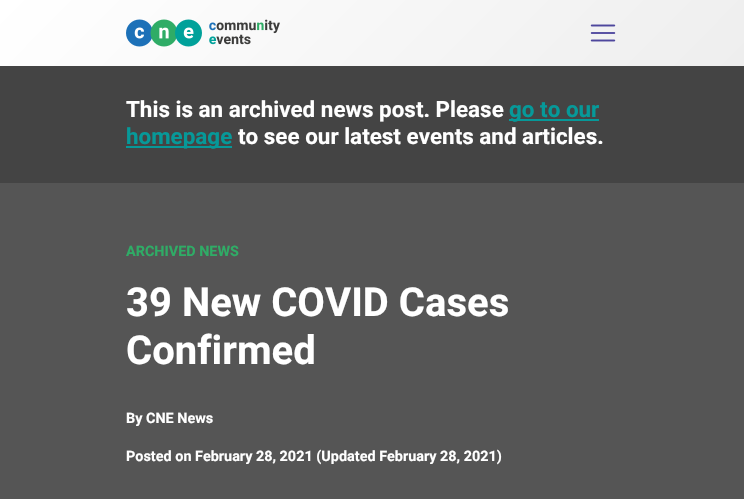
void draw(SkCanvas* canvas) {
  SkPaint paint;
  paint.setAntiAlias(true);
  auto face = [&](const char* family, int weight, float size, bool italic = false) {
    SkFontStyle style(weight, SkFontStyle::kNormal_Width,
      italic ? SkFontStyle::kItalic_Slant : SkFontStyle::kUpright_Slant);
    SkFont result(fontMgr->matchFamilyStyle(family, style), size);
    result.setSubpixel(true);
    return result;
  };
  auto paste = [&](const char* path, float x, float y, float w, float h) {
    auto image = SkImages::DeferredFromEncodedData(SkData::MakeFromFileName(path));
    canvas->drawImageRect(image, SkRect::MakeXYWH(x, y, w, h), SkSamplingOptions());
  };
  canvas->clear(0xff444444);
  {
    const SkColor colors[] = {0xffffffff, 0xffeeeeee};
    const float stops[] = {0, 1};
    const SkPoint ends[] = {{169, -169}, {575, 236}};
    paint.setShader(SkGradientShader::MakeLinear(ends, colors, stops, 2, SkTileMode::kClamp));
    paint.setAlpha(255);
  }
  canvas->drawRect(SkRect::MakeXYWH(0, 0, 744, 66), paint);
  paste("img/1.png", 126, 19, 154, 28);
  paste("img/2.png", 590, 24, 26, 18);
  paint.setShader(nullptr);
  {
    const struct { float x, y, w, h; SkColor color; } items[] = {
      {509, 119, 90, 2, 0xff069999},
      {126, 146, 106, 2, 0xff069999},
      {0, 183, 744, 316, 0xff555555},
    };
    for (auto [x, y, w, h, color] : items) {
      paint.setColor(color);
      canvas->drawRect(SkRect::MakeXYWH(x, y, w, h), paint);
    }
  }
  auto f0 = face("Heebo", 700, 22.4f);
  paint.setColor(0xffffffff);
  canvas->drawString("This is an archived news post. Please", 126, 117, f0, paint);
  paint.setColor(0xff069999);
  canvas->drawString("go to our", 509, 117, f0, paint);
  canvas->drawString("homepage", 126, 144, f0, paint);
  paint.setColor(0xffffffff);
  canvas->drawString("to see our latest events and articles.", 238, 144, f0, paint);
  auto f1 = face("Heebo", 700, 14.4f);
  paint.setColor(0xff2fac66);
  canvas->drawString("ARCHIVED NEWS", 126, 256, f1, paint);
  auto f2 = face("Heebo", 700, 40);
  paint.setColor(0xffffffff);
  canvas->drawString("39 New COVID Cases", 126, 316, f2, paint);
  canvas->drawString("Confirmed", 126, 364, f2, paint);
  canvas->drawString("By CNE News", 126, 423, f1, paint);
  canvas->drawString("Posted on February 28, 2021 (Updated February 28, 2021)", 126, 461, f1, paint);
}
